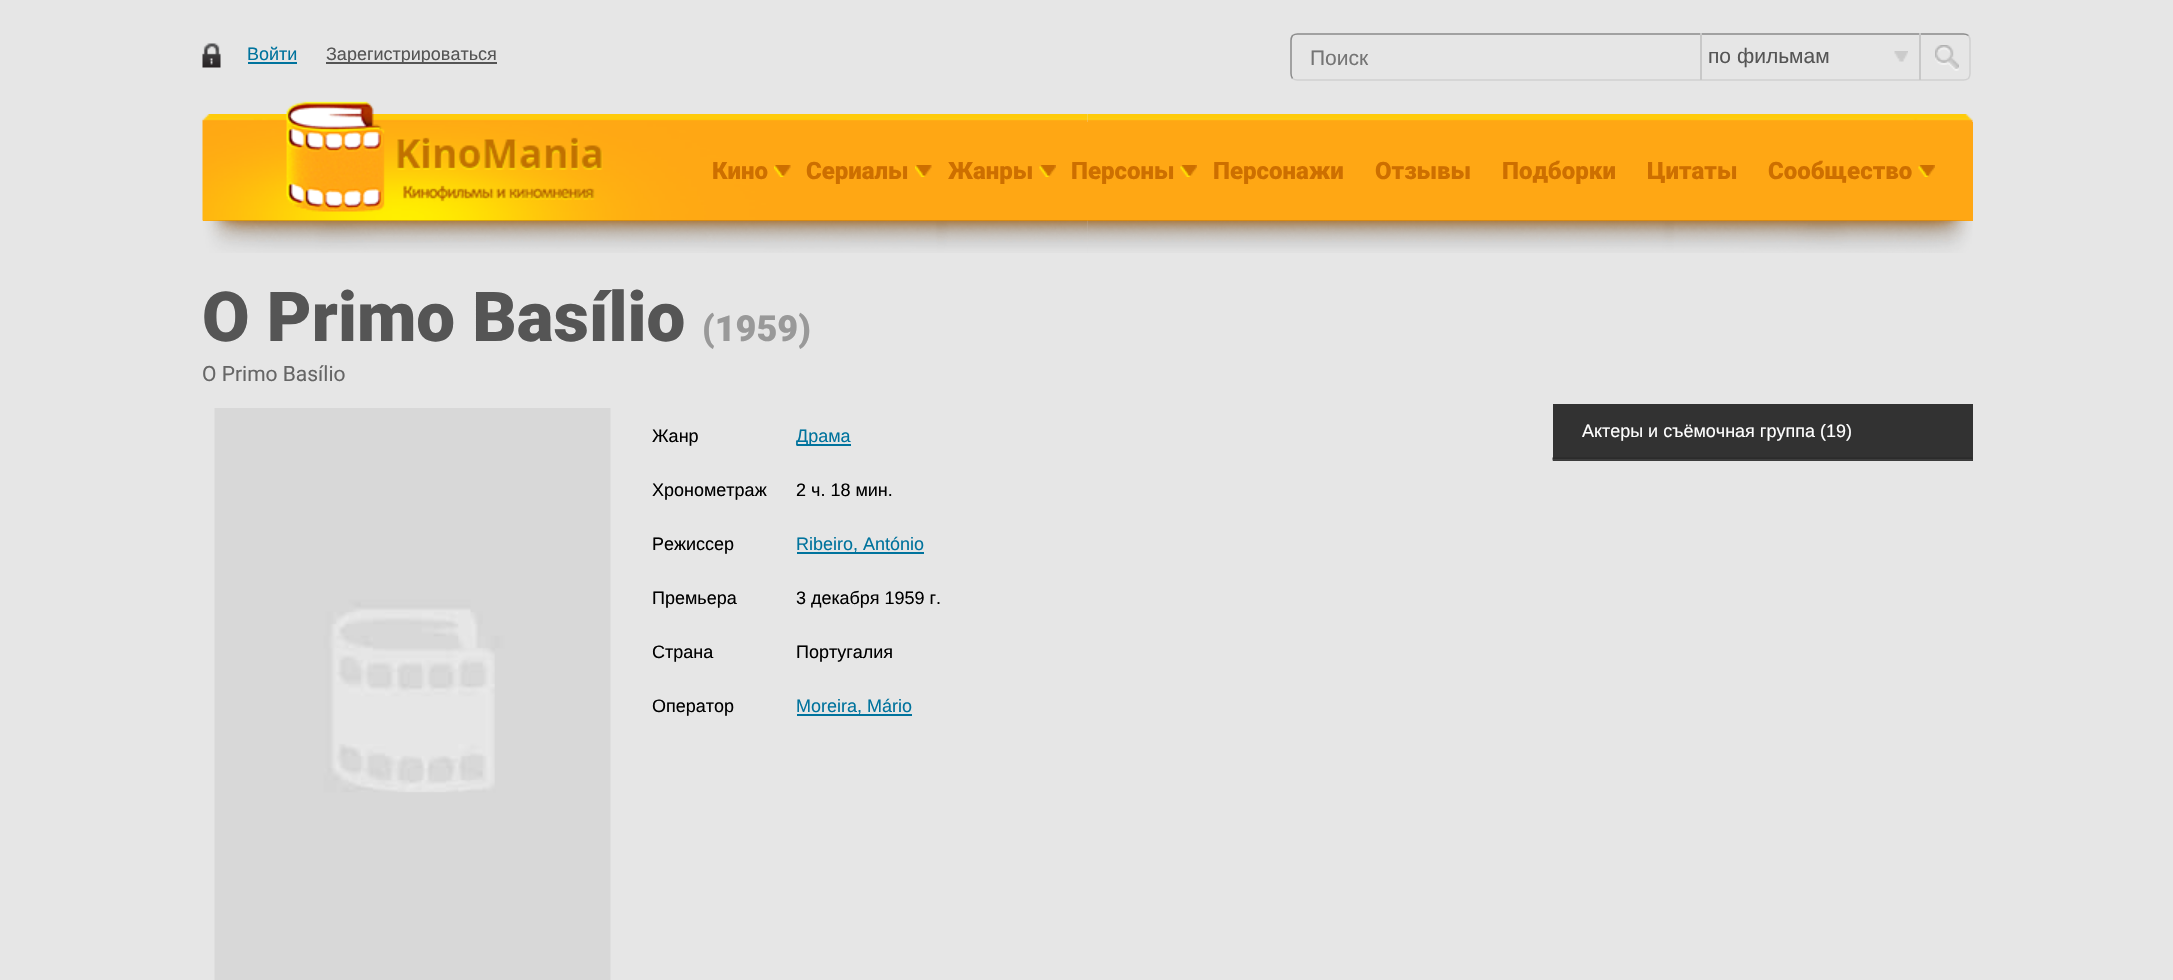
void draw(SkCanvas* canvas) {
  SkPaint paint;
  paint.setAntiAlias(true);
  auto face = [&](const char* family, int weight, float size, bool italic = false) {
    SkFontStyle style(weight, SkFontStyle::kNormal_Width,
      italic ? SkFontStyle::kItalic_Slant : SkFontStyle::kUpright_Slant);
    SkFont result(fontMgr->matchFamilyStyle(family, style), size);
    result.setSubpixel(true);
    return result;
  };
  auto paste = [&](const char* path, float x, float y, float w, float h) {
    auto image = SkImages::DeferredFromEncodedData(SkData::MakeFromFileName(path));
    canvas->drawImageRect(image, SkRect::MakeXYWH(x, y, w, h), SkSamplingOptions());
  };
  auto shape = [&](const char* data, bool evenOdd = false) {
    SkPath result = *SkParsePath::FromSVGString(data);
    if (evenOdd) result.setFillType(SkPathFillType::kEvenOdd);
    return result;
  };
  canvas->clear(0xffe6e6e6);
  paste("img/1.png", 202, 43, 19, 25);
  paint.setColor(0xff00739d);
  canvas->drawRect(SkRect::MakeXYWH(248, 62, 49, 2), paint);
  paint.setColor(0xff555555);
  canvas->drawRect(SkRect::MakeXYWH(326, 62, 171, 2), paint);
  paint.setStroke(true);
  paint.setStrokeWidth(1.5f);
  paint.setColor(0xffd1d1d1);
  canvas->drawPath(shape("M1968.5 35.5C1969.5 37 1970 38.5 1970 40.5V73.5C1970 75.5 1969.5 77 1968.5 78.5C1967 79.5 1965.5 80 1963.5 80H1297.5C1295.5 80 1294 79.5 1292.5 78.5"), paint);
  paint.setColor(0xff8b8b8b);
  canvas->drawPath(shape("M1292.5 78.5C1291.5 77 1291 75.5 1291 73.5V40.5C1291 38.5 1291.5 37 1292.5 35.5C1294 34.5 1295.5 34 1297.5 34H1963.5C1965.5 34 1967 34.5 1968.5 35.5"), paint);
  paint.setStroke(false);
  paint.setColor(0xffc8c8c8);
  canvas->drawRect(SkRect::MakeXYWH(1919, 33, 2, 47), paint);
  canvas->drawRect(SkRect::MakeXYWH(1700, 33, 2, 47), paint);
  paste("img/2.png", 1894, 51, 14, 11);
  paste("img/3.png", 1935, 45, 24, 26);
  paint.setColor(0xffffa714);
  canvas->drawRect(SkRect::MakeXYWH(203, 122, 1770, 99), paint);
  paste("img/5.png", 202, 114, 886, 139);
  paste("img/4.png", 286, 101, 317, 111);
  paste("img/6.png", 1087, 114, 886, 139);
  paste("img/7.png", 774, 165, 17, 12);
  paste("img/7.png", 915, 165, 17, 12);
  paste("img/8.png", 1039, 165, 17, 12);
  paste("img/9.png", 1180, 165, 17, 12);
  paste("img/9.png", 1918, 165, 17, 12);
  paste("img/10.png", 214, 408, 397, 572);
  {
    const struct { float x, y, w, h; SkColor color; } items[] = {
      {797, 444, 54, 2, 0xff00739d},
      {797, 552, 127, 2, 0xff00739d},
      {797, 714, 115, 2, 0xff00739d},
      {1553, 404, 420, 57, 0xff323232},
    };
    for (auto [x, y, w, h, color] : items) {
      paint.setColor(color);
      canvas->drawRect(SkRect::MakeXYWH(x, y, w, h), paint);
    }
  }
  paste("img/11.png", 1552, 457, 421, 4);
  auto f0 = face("Liberation Sans", 400, 18);
  paint.setColor(0xff00739d);
  canvas->drawString("Войти", 247, 60, f0, paint);
  paint.setColor(0xff555555);
  canvas->drawString("Зарегистрироваться", 326, 60, f0, paint);
  auto f1 = face("Liberation Sans", 400, 21);
  paint.setColor(0xff757575);
  canvas->drawString("Поиск", 1310, 65, f1, paint);
  paint.setColor(0xff555555);
  canvas->drawString("по фильмам", 1708, 63, f1, paint);
  auto f2 = face("Roboto", 900, 24);
  paint.setColor(0xffcd6f00);
  {
    const struct { const char* s; float x, y; } items[] = {
      {"Кино", 712, 179},
      {"Сериалы", 806, 179},
      {"Жанры", 948, 179},
      {"Персоны", 1071, 179},
      {"Персонажи", 1213, 179},
      {"Отзывы", 1375, 179},
      {"Подборки", 1502, 179},
      {"Цитаты", 1647, 179},
      {"Сообщество", 1768, 179},
    };
    for (auto [s, x, y] : items) {
      canvas->drawString(s, x, y, f2, paint);
    }
  }
  auto f3 = face("Roboto", 900, 69);
  paint.setColor(0xff555555);
  canvas->drawString("O Primo Basílio", 202, 341, f3, paint);
  auto f4 = face("Roboto", 900, 36);
  paint.setColor(0xff999999);
  canvas->drawString("(1959)", 702, 341, f4, paint);
  auto f5 = face("Roboto", 400, 21);
  paint.setColor(0xff666666);
  canvas->drawString("O Primo Basílio", 202, 381, f5, paint);
  paint.setColor(0xff000000);
  canvas->drawString("Жанр", 652, 442, f0, paint);
  paint.setColor(0xff00739d);
  canvas->drawString("Драма", 796, 442, f0, paint);
  paint.setColor(0xff000000);
  {
    const struct { const char* s; float x, y; } items[] = {
      {"Хронометраж", 652, 496},
      {"2 ч. 18 мин.", 796, 496},
      {"Режиссер", 652, 550},
    };
    for (auto [s, x, y] : items) {
      canvas->drawString(s, x, y, f0, paint);
    }
  }
  paint.setColor(0xff00739d);
  canvas->drawString("Ribeiro, António", 796, 550, f0, paint);
  paint.setColor(0xff000000);
  {
    const struct { const char* s; float x, y; } items[] = {
      {"Премьера", 652, 604},
      {"3 декабря 1959 г.", 796, 604},
      {"Страна", 652, 658},
      {"Португалия", 796, 658},
      {"Оператор", 652, 712},
    };
    for (auto [s, x, y] : items) {
      canvas->drawString(s, x, y, f0, paint);
    }
  }
  paint.setColor(0xff00739d);
  canvas->drawString("Moreira, Mário", 796, 712, f0, paint);
  paint.setColor(0xffffffff);
  canvas->drawString("Актеры и съёмочная группа (19)", 1582, 437, f0, paint);
}
